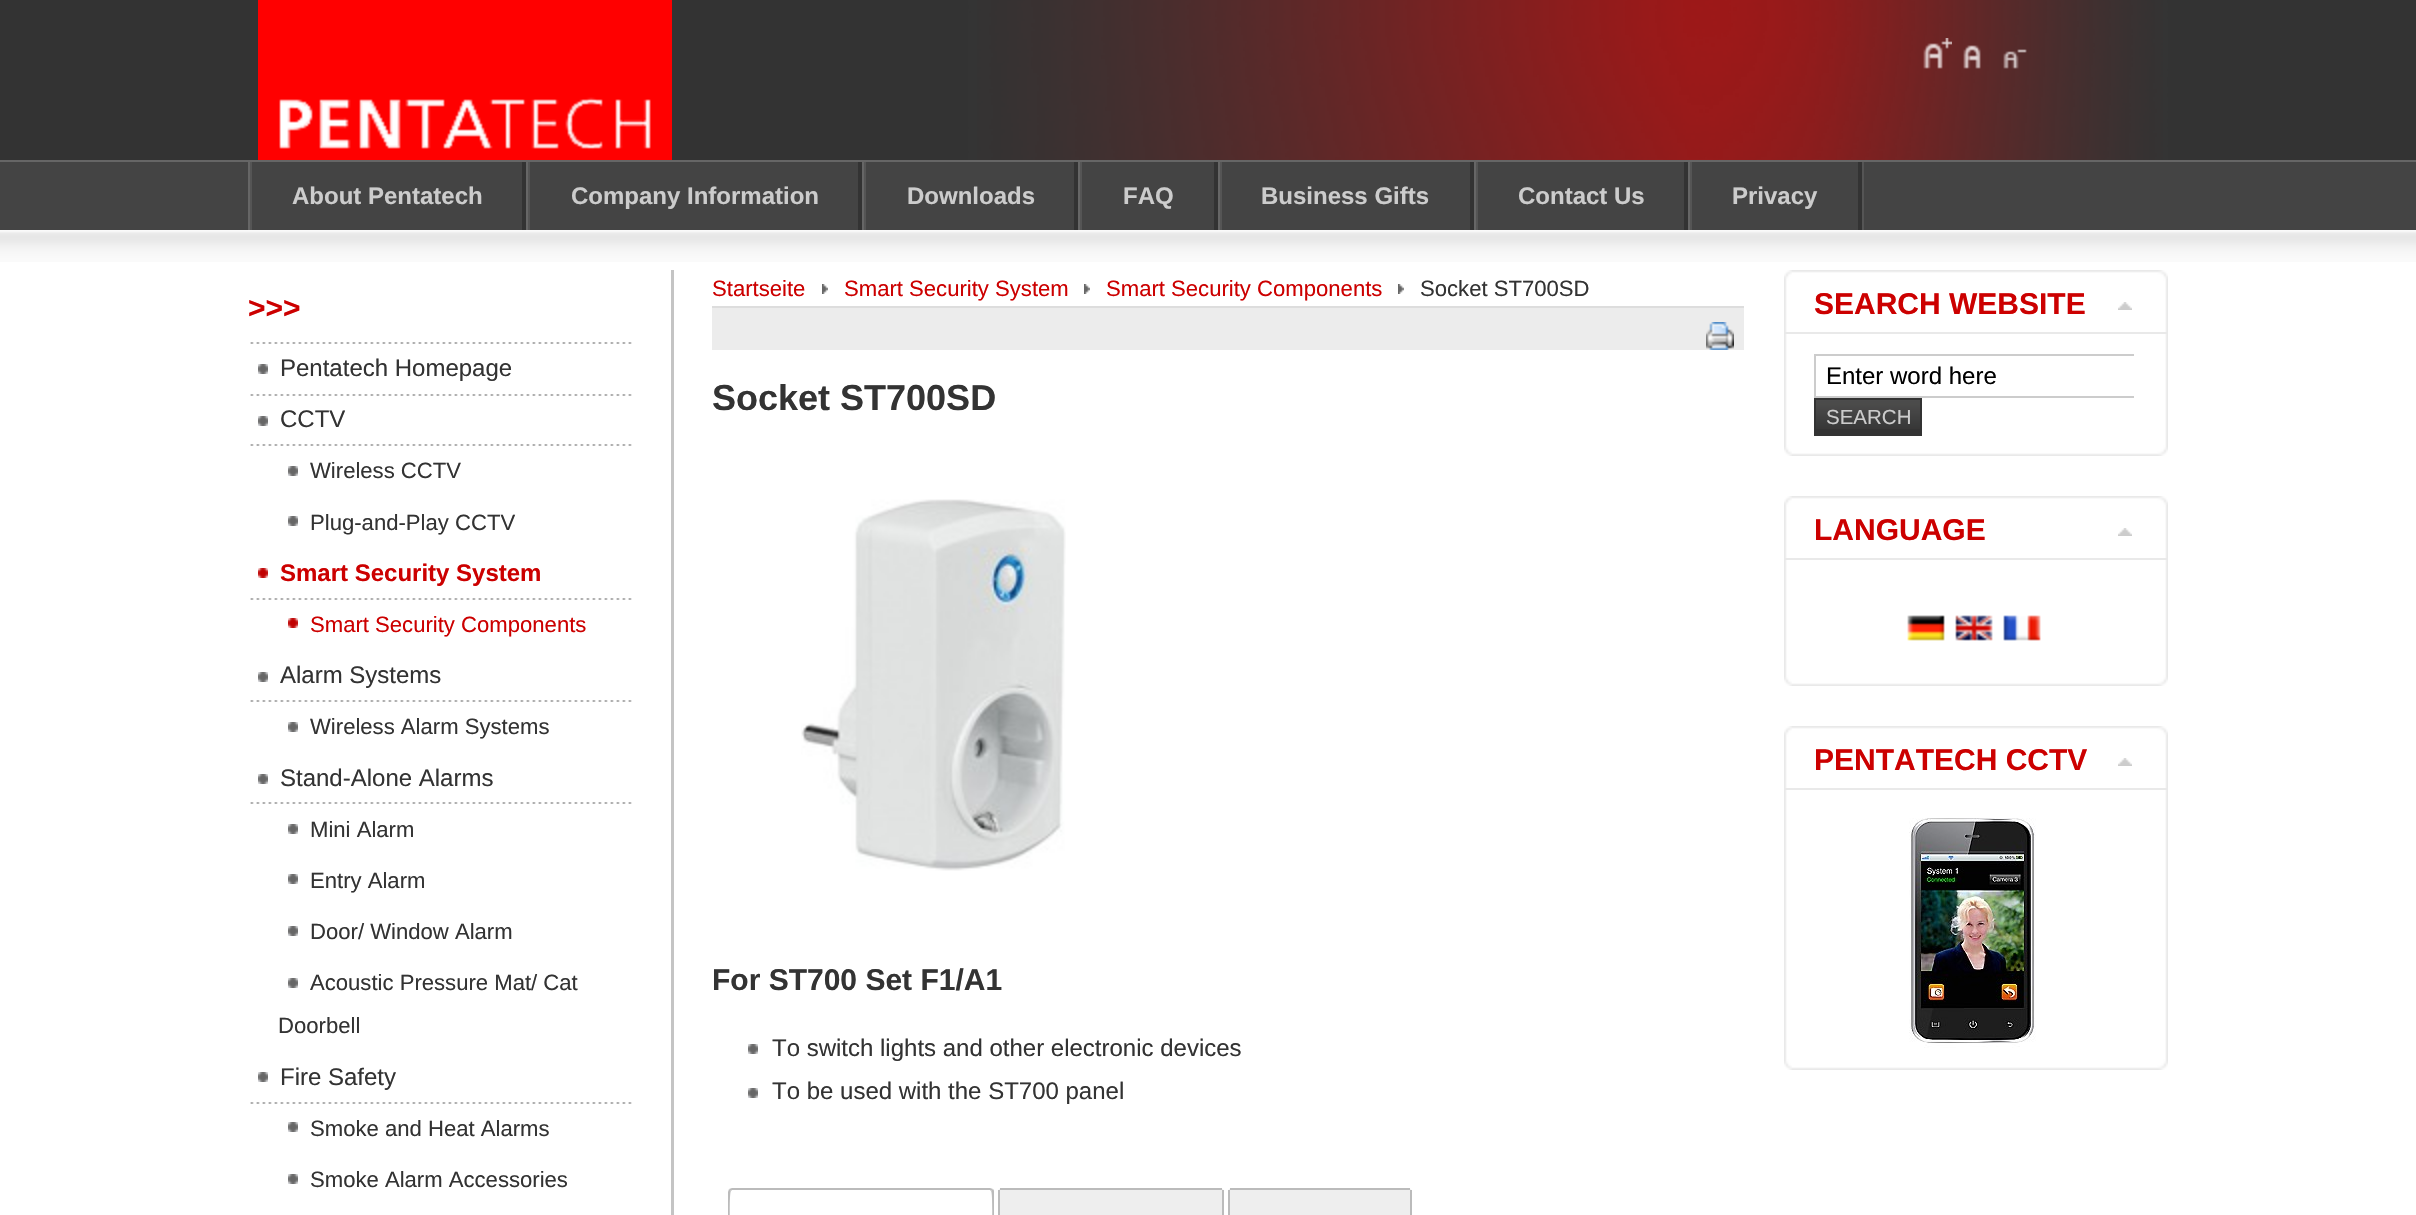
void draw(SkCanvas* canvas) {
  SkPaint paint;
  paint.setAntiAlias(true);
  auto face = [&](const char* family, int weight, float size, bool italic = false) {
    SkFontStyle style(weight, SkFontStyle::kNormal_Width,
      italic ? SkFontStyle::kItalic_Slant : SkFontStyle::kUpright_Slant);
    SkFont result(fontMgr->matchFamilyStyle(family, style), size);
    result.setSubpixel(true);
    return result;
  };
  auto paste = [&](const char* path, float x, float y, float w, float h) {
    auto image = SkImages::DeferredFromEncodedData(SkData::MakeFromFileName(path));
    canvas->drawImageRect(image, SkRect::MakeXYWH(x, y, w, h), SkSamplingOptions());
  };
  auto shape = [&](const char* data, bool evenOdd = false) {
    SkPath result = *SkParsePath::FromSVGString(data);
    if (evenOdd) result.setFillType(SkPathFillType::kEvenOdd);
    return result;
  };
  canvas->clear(0xffffffff);
  paint.setColor(0xff333333);
  canvas->drawRect(SkRect::MakeXYWH(0, 0, 2416, 160), paint);
  paint.setColor(0xfffe0000);
  canvas->drawRect(SkRect::MakeXYWH(977, 0, 1186, 160), paint);
  paste("img/1.png", 258, 0, 414, 160);
  paste("img/2.png", 968, 0, 1200, 160);
  paste("img/3.png", 1923, 38, 29, 31);
  paste("img/4.png", 1963, 45, 18, 24);
  paste("img/5.png", 2003, 49, 24, 20);
  {
    const struct { float x, y, w, h; SkColor color; } items[] = {
      {0, 162, 2416, 68, 0xff444444},
      {0, 160, 2416, 2, 0xff666666},
      {1862, 162, 2, 68, 0xff555555},
      {522, 162, 4, 68, 0xff333333},
      {248, 162, 2, 68, 0xff666666},
      {250, 162, 2, 68, 0xff555555},
      {858, 162, 4, 68, 0xff333333},
      {526, 162, 2, 68, 0xff666666},
      {528, 162, 2, 68, 0xff555555},
      {1074, 162, 4, 68, 0xff333333},
      {862, 162, 2, 68, 0xff666666},
      {864, 162, 2, 68, 0xff555555},
      {1214, 162, 4, 68, 0xff333333},
      {1078, 162, 2, 68, 0xff666666},
      {1080, 162, 2, 68, 0xff555555},
      {1470, 162, 4, 68, 0xff333333},
      {1218, 162, 2, 68, 0xff666666},
      {1220, 162, 2, 68, 0xff555555},
      {1684, 162, 4, 68, 0xff333333},
      {1474, 162, 2, 68, 0xff666666},
      {1476, 162, 2, 68, 0xff555555},
      {1858, 162, 4, 68, 0xff333333},
      {1688, 162, 2, 68, 0xff666666},
      {1690, 162, 2, 68, 0xff555555},
    };
    for (auto [x, y, w, h, color] : items) {
      paint.setColor(color);
      canvas->drawRect(SkRect::MakeXYWH(x, y, w, h), paint);
    }
  }
  paste("img/6.png", 0, 230, 2416, 32);
  paint.setColor(0xffc4c4c4);
  canvas->drawRect(SkRect::MakeXYWH(671, 270, 3, 945), paint);
  paste("img/7.png", 250, 342, 382, 2);
  paste("img/7.png", 250, 394, 382, 2);
  paste("img/8.png", 258, 364, 10, 10);
  paste("img/7.png", 250, 444, 382, 2);
  paste("img/8.png", 258, 416, 10, 10);
  paste("img/8.png", 288, 466, 10, 10);
  paste("img/8.png", 288, 516, 10, 10);
  paste("img/7.png", 250, 598, 382, 2);
  paste("img/9.png", 258, 568, 10, 10);
  paste("img/9.png", 288, 618, 10, 10);
  paste("img/7.png", 250, 700, 382, 2);
  paste("img/8.png", 258, 672, 10, 10);
  paste("img/8.png", 288, 722, 10, 10);
  paste("img/7.png", 250, 802, 382, 2);
  paste("img/8.png", 258, 774, 10, 10);
  paste("img/8.png", 288, 824, 10, 10);
  paste("img/8.png", 288, 874, 10, 10);
  paste("img/8.png", 288, 926, 10, 10);
  paste("img/8.png", 288, 978, 10, 10);
  paste("img/7.png", 250, 1102, 382, 2);
  paste("img/8.png", 258, 1072, 10, 10);
  paste("img/8.png", 288, 1122, 10, 10);
  paste("img/8.png", 288, 1174, 10, 10);
  paste("img/10.png", 822, 284, 6, 10);
  paste("img/10.png", 1084, 284, 6, 10);
  paste("img/10.png", 1398, 284, 6, 10);
  paint.setColor(0xffececec);
  canvas->drawRect(SkRect::MakeXYWH(712, 308, 1032, 42), paint);
  paint.setColor(0xffdddddd);
  canvas->drawRect(SkRect::MakeXYWH(712, 306, 1032, 2), paint);
  paste("img/11.png", 1706, 322, 28, 28);
  paste("img/12.png", 801, 499, 265, 372);
  paste("img/8.png", 748, 1044, 10, 10);
  paste("img/8.png", 748, 1088, 10, 10);
  paint.setColor(0xffbbbbbb);
  canvas->drawPath(shape("M732 1188L729 1189L731 1191L732 1190H990L991 1191L993 1189L990 1188Z"), paint);
  paint.setColor(0xffeeeeee);
  canvas->drawPath(shape("M1002 1188H1220C1222 1188 1224 1190 1224 1192V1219H998V1192C998 1190 1000 1188 1002 1188Z"), paint);
  paint.setColor(0xffbbbbbb);
  canvas->drawRect(SkRect::MakeXYWH(1000, 1188, 222, 2), paint);
  paint.setColor(0xffeeeeee);
  canvas->drawPath(shape("M1232 1188H1408C1410 1188 1412 1190 1412 1192V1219H1228V1192C1228 1190 1230 1188 1232 1188Z"), paint);
  paint.setColor(0xffbbbbbb);
  canvas->drawPath(shape("M728 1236L730 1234C730 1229 729 1192 731 1191L729 1189L728 1192Z"), paint);
  canvas->drawPath(shape("M994 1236V1192C994 1191 994 1190 993 1189L991 1191C993 1192 992 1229 992 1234Z"), paint);
  {
    const struct { float x, y, w, h; SkColor color; } items[] = {
      {998, 1190, 2, 25, 0xffbbbbbb},
      {1222, 1190, 2, 25, 0xffbbbbbb},
      {1228, 1190, 2, 25, 0xffbbbbbb},
      {1230, 1188, 180, 2, 0xffbbbbbb},
      {1410, 1190, 2, 25, 0xffbbbbbb},
    };
    for (auto [x, y, w, h, color] : items) {
      paint.setColor(color);
      canvas->drawRect(SkRect::MakeXYWH(x, y, w, h), paint);
    }
  }
  paste("img/13.png", 1792, 334, 376, 122);
  paste("img/14.png", 1784, 334, 8, 122);
  paste("img/15.png", 1792, 270, 376, 62);
  paste("img/16.png", 1784, 270, 8, 62);
  paste("img/17.png", 2118, 302, 14, 8);
  paint.setColor(0xffe9e9e9);
  canvas->drawRect(SkRect::MakeXYWH(1784, 332, 384, 2), paint);
  canvas->save();
  canvas->clipRect(SkRect::MakeXYWH(1814, 354, 320, 82));
  paint.setStroke(true);
  paint.setStrokeWidth(2);
  paint.setColor(0xffcccccc);
  canvas->drawRect(SkRect::MakeXYWH(1815, 355, 402, 42), paint);
  canvas->restore();
  paint.setStroke(false);
  paint.setColor(0xff333333);
  canvas->drawRect(SkRect::MakeXYWH(1816, 429, 104, 5), paint);
  paste("img/18.png", 1816, 400, 104, 29);
  paint.setStroke(true);
  canvas->drawRect(SkRect::MakeXYWH(1815, 399, 106, 36), paint);
  paste("img/19.png", 1792, 560, 376, 126);
  paste("img/20.png", 1784, 560, 8, 126);
  paste("img/15.png", 1792, 496, 376, 62);
  paste("img/16.png", 1784, 496, 8, 62);
  paste("img/17.png", 2118, 528, 14, 8);
  paint.setStroke(false);
  paint.setColor(0xffe9e9e9);
  canvas->drawRect(SkRect::MakeXYWH(1784, 558, 384, 2), paint);
  paste("img/21.png", 1907, 615, 38, 26);
  paste("img/22.png", 1955, 615, 38, 26);
  paste("img/23.png", 2003, 615, 38, 26);
  paste("img/24.png", 1792, 790, 376, 280);
  paste("img/25.png", 1784, 790, 8, 280);
  paste("img/15.png", 1792, 726, 376, 62);
  paste("img/16.png", 1784, 726, 8, 62);
  paste("img/17.png", 2118, 758, 14, 8);
  canvas->drawRect(SkRect::MakeXYWH(1784, 788, 384, 2), paint);
  paste("img/26.png", 1909, 818, 127, 230);
  auto f0 = face("Liberation Sans", 700, 24);
  paint.setColor(0xffcccccc);
  {
    const struct { const char* s; float x, y; } items[] = {
      {"About Pentatech", 292, 204},
      {"Company Information", 571, 204},
      {"Downloads", 907, 204},
      {"FAQ", 1123, 204},
      {"Business Gifts", 1261, 204},
      {"Contact Us", 1518, 204},
      {"Privacy", 1732, 204},
    };
    for (auto [s, x, y] : items) {
      canvas->drawString(s, x, y, f0, paint);
    }
  }
  auto f1 = face("Liberation Sans", 700, 30);
  paint.setColor(0xffcc0000);
  canvas->drawString(">>>", 248, 318, f1, paint);
  auto f2 = face("Liberation Sans", 400, 24);
  paint.setColor(0xff333333);
  canvas->drawString("Pentatech Homepage", 280, 376, f2, paint);
  canvas->drawString("CCTV", 280, 427, f2, paint);
  auto f3 = face("Liberation Sans", 400, 22.1f);
  canvas->drawString("Wireless CCTV", 310, 478, f3, paint);
  canvas->drawString("Plug-and-Play CCTV", 310, 530, f3, paint);
  paint.setColor(0xffcc0000);
  canvas->drawString("Smart Security System", 280, 581, f0, paint);
  canvas->drawString("Smart Security Components", 310, 632, f3, paint);
  paint.setColor(0xff333333);
  canvas->drawString("Alarm Systems", 280, 683, f2, paint);
  canvas->drawString("Wireless Alarm Systems", 310, 734, f3, paint);
  canvas->drawString("Stand-Alone Alarms", 280, 786, f2, paint);
  {
    const struct { const char* s; float x, y; } items[] = {
      {"Mini Alarm", 310, 837},
      {"Entry Alarm", 310, 888},
      {"Door/ Window Alarm", 310, 939},
      {"Acoustic Pressure Mat/ Cat", 310, 990},
      {"Doorbell", 278, 1033},
    };
    for (auto [s, x, y] : items) {
      canvas->drawString(s, x, y, f3, paint);
    }
  }
  canvas->drawString("Fire Safety", 280, 1085, f2, paint);
  canvas->drawString("Smoke and Heat Alarms", 310, 1136, f3, paint);
  canvas->drawString("Smoke Alarm Accessories", 310, 1187, f3, paint);
  paint.setColor(0xffcc0000);
  {
    const struct { const char* s; float x, y; } items[] = {
      {"Startseite", 712, 296},
      {"Smart Security System", 844, 296},
      {"Smart Security Components", 1106, 296},
    };
    for (auto [s, x, y] : items) {
      canvas->drawString(s, x, y, f3, paint);
    }
  }
  paint.setColor(0xff333333);
  canvas->drawString("Socket ST700SD", 1420, 296, f3, paint);
  auto f4 = face("Liberation Sans", 700, 36);
  canvas->drawString("Socket ST700SD", 712, 410, f4, paint);
  canvas->drawString("For ST700 Set F1/A1", 712, 990, f1, paint);
  canvas->drawString("To switch lights and other electronic devices", 772, 1056, f2, paint);
  canvas->drawString("To be used with the ST700 panel", 772, 1099, f2, paint);
  paint.setColor(0xffcc0000);
  canvas->drawString("SEARCH WEBSITE", 1814, 314, f1, paint);
  paint.setColor(0xff000000);
  canvas->drawString("Enter word here", 1826, 384, f2, paint);
  auto f5 = face("Liberation Sans", 400, 20.5f);
  paint.setColor(0xffcccccc);
  canvas->drawString("SEARCH", 1826, 424, f5, paint);
  paint.setColor(0xffcc0000);
  canvas->drawString("LANGUAGE", 1814, 540, f1, paint);
  canvas->drawString("PENTATECH CCTV", 1814, 770, f1, paint);
}
